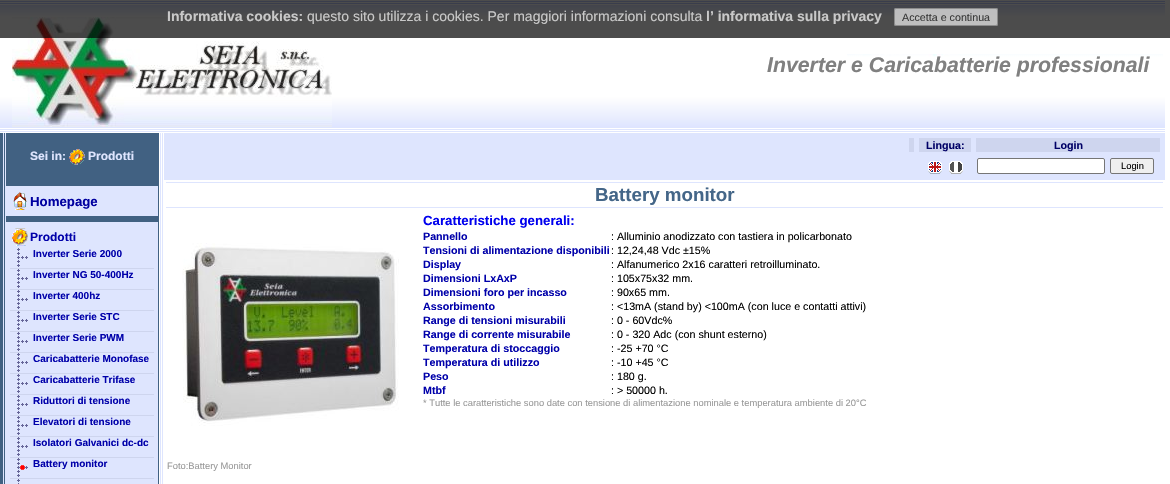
void draw(SkCanvas* canvas) {
  SkPaint paint;
  paint.setAntiAlias(true);
  auto face = [&](const char* family, int weight, float size, bool italic = false) {
    SkFontStyle style(weight, SkFontStyle::kNormal_Width,
      italic ? SkFontStyle::kItalic_Slant : SkFontStyle::kUpright_Slant);
    SkFont result(fontMgr->matchFamilyStyle(family, style), size);
    result.setSubpixel(true);
    return result;
  };
  auto paste = [&](const char* path, float x, float y, float w, float h) {
    auto image = SkImages::DeferredFromEncodedData(SkData::MakeFromFileName(path));
    canvas->drawImageRect(image, SkRect::MakeXYWH(x, y, w, h), SkSamplingOptions());
  };
  canvas->clear(0xffffffff);
  paste("img/1.png", 0, 1, 336, 131);
  paste("img/2.png", 12, 17, 320, 110);
  paste("img/3.png", 336, 1, 509, 131);
  paste("img/4.png", 845, 1, 320, 131);
  paste("img/5.png", 847, 54, 316, 3);
  paint.setColor(0xb3000000);
  canvas->drawRect(SkRect::MakeXYWH(0, 0, 1170, 38), paint);
  paint.setColor(0xb3efefef);
  canvas->drawRoundRect(SkRect::MakeXYWH(894, 8, 104, 18), 2, 2, paint);
  paint.setStroke(true);
  paint.setStrokeWidth(1);
  paint.setColor(0xb3767676);
  canvas->drawRoundRect(SkRect::MakeXYWH(894.5f, 8.5f, 103, 17), 1.5f, 1.5f, paint);
  paint.setStroke(false);
  paint.setColor(0xff416182);
  canvas->drawRect(SkRect::MakeXYWH(0, 133, 3, 351), paint);
  paste("img/6.png", 3, 133, 161, 47);
  paste("img/7.png", 69, 149, 16, 16);
  {
    const struct { float x, y, w, h; SkColor color; } items[] = {
      {164, 133, 1001, 47, 0xffdee5fe},
      {909, 138, 5, 14, 0xffced5ee},
      {919, 138, 52, 14, 0xffced5ee},
      {976, 138, 184, 14, 0xffced5ee},
    };
    for (auto [x, y, w, h, color] : items) {
      paint.setColor(color);
      canvas->drawRect(SkRect::MakeXYWH(x, y, w, h), paint);
    }
  }
  paste("img/8.png", 928, 161, 35, 13);
  paint.setColor(0xffffffff);
  canvas->drawRoundRect(SkRect::MakeXYWH(977.5f, 158.5f, 127, 15), 1.5f, 1.5f, paint);
  paint.setStroke(true);
  paint.setColor(0xff767676);
  canvas->drawRoundRect(SkRect::MakeXYWH(977.5f, 158.5f, 127, 15), 1.5f, 1.5f, paint);
  paint.setStroke(false);
  paint.setColor(0xffefefef);
  canvas->drawRoundRect(SkRect::MakeXYWH(1110.5f, 158.5f, 43, 15), 1.5f, 1.5f, paint);
  paint.setStroke(true);
  paint.setColor(0xff767676);
  canvas->drawRoundRect(SkRect::MakeXYWH(1110.5f, 158.5f, 43, 15), 1.5f, 1.5f, paint);
  paste("img/9.png", 3, 180, 161, 304);
  paint.setStroke(false);
  paint.setColor(0xffdee5fe);
  canvas->drawRect(SkRect::MakeXYWH(6, 186, 152, 30), paint);
  paste("img/10.png", 13, 192, 14, 18);
  canvas->drawRect(SkRect::MakeXYWH(6, 222, 152, 262), paint);
  paste("img/11.png", 12, 228, 16, 18);
  paint.setColor(0xffced5ee);
  canvas->drawRect(SkRect::MakeXYWH(10, 268, 144, 1), paint);
  paste("img/12.png", 17, 248, 11, 19);
  canvas->drawRect(SkRect::MakeXYWH(10, 289, 144, 1), paint);
  paste("img/12.png", 17, 269, 11, 19);
  canvas->drawRect(SkRect::MakeXYWH(10, 310, 144, 1), paint);
  paste("img/12.png", 17, 290, 11, 19);
  canvas->drawRect(SkRect::MakeXYWH(10, 331, 144, 1), paint);
  paste("img/12.png", 17, 311, 11, 19);
  canvas->drawRect(SkRect::MakeXYWH(10, 352, 144, 1), paint);
  paste("img/12.png", 17, 332, 11, 19);
  canvas->drawRect(SkRect::MakeXYWH(10, 373, 144, 1), paint);
  paste("img/12.png", 17, 353, 11, 19);
  canvas->drawRect(SkRect::MakeXYWH(10, 394, 144, 1), paint);
  paste("img/12.png", 17, 374, 11, 19);
  canvas->drawRect(SkRect::MakeXYWH(10, 415, 144, 1), paint);
  paste("img/12.png", 17, 395, 11, 19);
  canvas->drawRect(SkRect::MakeXYWH(10, 436, 144, 1), paint);
  paste("img/12.png", 17, 416, 11, 19);
  canvas->drawRect(SkRect::MakeXYWH(10, 457, 144, 1), paint);
  paste("img/12.png", 17, 437, 11, 19);
  canvas->drawRect(SkRect::MakeXYWH(10, 478, 144, 1), paint);
  paste("img/13.png", 17, 458, 11, 19);
  paste("img/14.png", 17, 479, 3, 5);
  paint.setColor(0xffdee5fe);
  canvas->drawRect(SkRect::MakeXYWH(166, 182, 997, 1), paint);
  canvas->drawRect(SkRect::MakeXYWH(166, 207, 997, 1), paint);
  paste("img/15.png", 182, 243, 217, 183);
  auto f0 = face("Liberation Sans", 700, 14);
  paint.setColor(0xffc9c9c9);
  canvas->drawString("Informativa cookies:", 167, 21, f0, paint);
  auto f1 = face("Liberation Sans", 400, 14);
  canvas->drawString("questo sito utilizza i cookies. Per maggiori informazioni consulta", 307, 21, f1, paint);
  canvas->drawString("l’ informativa sulla privacy", 706, 21, f0, paint);
  auto f2 = face("Liberation Sans", 400, 10.7f);
  paint.setColor(0xff393939);
  canvas->drawString("Accetta e continua", 902, 21, f2, paint);
  auto f3 = face("Liberation Sans", 700, 21.3f, true);
  paint.setColor(0xff808080);
  canvas->drawString("Inverter e Caricabatterie professionali", 767, 72, f3, paint);
  auto f4 = face("Liberation Sans", 700, 12);
  paint.setColor(0xffdee5fe);
  canvas->drawString("Sei in:", 30, 160, f4, paint);
  canvas->drawString("Prodotti", 88, 160, f4, paint);
  auto f5 = face("Liberation Sans", 700, 10.7f);
  paint.setColor(0xff000066);
  canvas->drawString("Lingua:", 926, 149, f5, paint);
  canvas->drawString("Login", 1054, 149, f5, paint);
  auto f6 = face("Liberation Sans", 400, 9.35f);
  paint.setColor(0xff000000);
  canvas->drawString("Login", 1121, 169, f6, paint);
  auto f7 = face("Liberation Sans", 700, 13.25f);
  paint.setColor(0xff0000a0);
  canvas->drawString("Homepage", 30, 206, f7, paint);
  paint.setColor(0xff0000aa);
  canvas->drawString("Prodotti", 30, 241, f4, paint);
  auto f8 = face("Liberation Sans", 700, 10);
  {
    const struct { const char* s; float x, y; } items[] = {
      {"Inverter Serie 2000", 33, 257},
      {"Inverter NG 50-400Hz", 33, 278},
      {"Inverter 400hz", 33, 299},
      {"Inverter Serie STC", 33, 320},
      {"Inverter Serie PWM", 33, 341},
      {"Caricabatterie Monofase", 33, 362},
      {"Caricabatterie Trifase", 33, 383},
      {"Riduttori di tensione", 33, 404},
      {"Elevatori di tensione", 33, 425},
      {"Isolatori Galvanici dc-dc", 33, 446},
      {"Battery monitor", 33, 467},
    };
    for (auto [s, x, y] : items) {
      canvas->drawString(s, x, y, f8, paint);
    }
  }
  auto f9 = face("Liberation Sans", 700, 18.75f);
  paint.setColor(0xff446688);
  canvas->drawString("Battery monitor", 595, 201, f9, paint);
  paint.setColor(0xff0000ee);
  canvas->drawString("Caratteristiche generali:", 423, 225, f7, paint);
  paint.setColor(0xff0000aa);
  canvas->drawString("Pannello", 423, 240, f5, paint);
  paint.setColor(0xff000000);
  canvas->drawString(": Alluminio anodizzato con tastiera in policarbonato", 611, 240, f2, paint);
  paint.setColor(0xff0000aa);
  canvas->drawString("Tensioni di alimentazione disponibili", 423, 254, f5, paint);
  paint.setColor(0xff000000);
  canvas->drawString(": 12,24,48 Vdc ±15%", 611, 254, f2, paint);
  paint.setColor(0xff0000aa);
  canvas->drawString("Display", 423, 268, f5, paint);
  paint.setColor(0xff000000);
  canvas->drawString(": Alfanumerico 2x16 caratteri retroilluminato.", 611, 268, f2, paint);
  paint.setColor(0xff0000aa);
  canvas->drawString("Dimensioni LxAxP", 423, 282, f5, paint);
  paint.setColor(0xff000000);
  canvas->drawString(": 105x75x32 mm.", 611, 282, f2, paint);
  paint.setColor(0xff0000aa);
  canvas->drawString("Dimensioni foro per incasso", 423, 296, f5, paint);
  paint.setColor(0xff000000);
  canvas->drawString(": 90x65 mm.", 611, 296, f2, paint);
  paint.setColor(0xff0000aa);
  canvas->drawString("Assorbimento", 423, 310, f5, paint);
  paint.setColor(0xff000000);
  canvas->drawString(": <13mA (stand by) <100mA (con luce e contatti attivi)", 611, 310, f2, paint);
  paint.setColor(0xff0000aa);
  canvas->drawString("Range di tensioni misurabili", 423, 324, f5, paint);
  paint.setColor(0xff000000);
  canvas->drawString(": 0 - 60Vdc%", 611, 324, f2, paint);
  paint.setColor(0xff0000aa);
  canvas->drawString("Range di corrente misurabile", 423, 338, f5, paint);
  paint.setColor(0xff000000);
  canvas->drawString(": 0 - 320 Adc (con shunt esterno)", 611, 338, f2, paint);
  paint.setColor(0xff0000aa);
  canvas->drawString("Temperatura di stoccaggio", 423, 352, f5, paint);
  paint.setColor(0xff000000);
  canvas->drawString(": -25 +70 °C", 611, 352, f2, paint);
  paint.setColor(0xff0000aa);
  canvas->drawString("Temperatura di utilizzo", 423, 366, f5, paint);
  paint.setColor(0xff000000);
  canvas->drawString(": -10 +45 °C", 611, 366, f2, paint);
  paint.setColor(0xff0000aa);
  canvas->drawString("Peso", 423, 380, f5, paint);
  paint.setColor(0xff000000);
  canvas->drawString(": 180 g.", 611, 380, f2, paint);
  paint.setColor(0xff0000aa);
  canvas->drawString("Mtbf", 423, 394, f5, paint);
  paint.setColor(0xff000000);
  canvas->drawString(": > 50000 h.", 611, 394, f2, paint);
  paint.setColor(0xff999999);
  canvas->drawString("* Tutte le caratteristiche sono date con tensione di alimentazione nominale e temperatura ambiente di 20°C", 423, 406, f6, paint);
  canvas->drawString("Foto:Battery Monitor", 167, 469, f6, paint);
}
